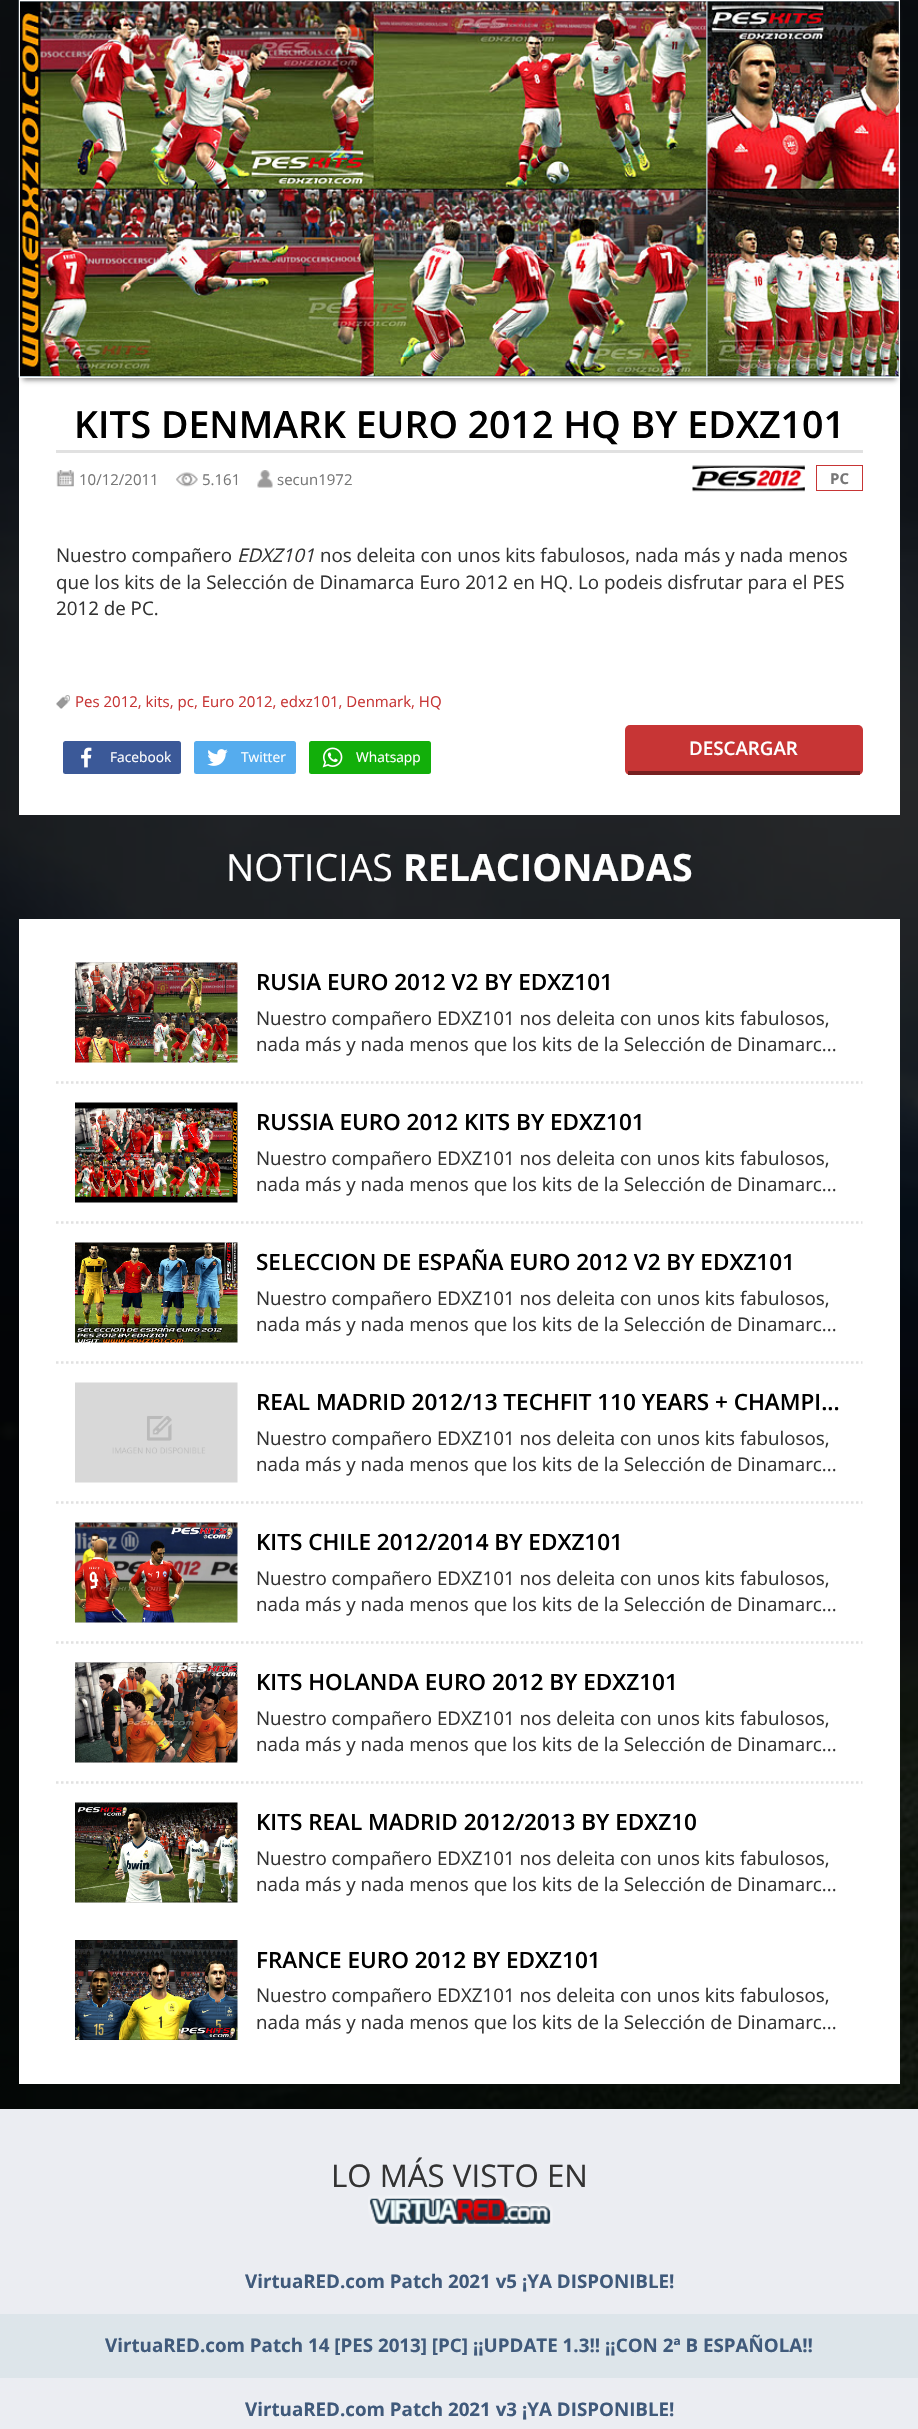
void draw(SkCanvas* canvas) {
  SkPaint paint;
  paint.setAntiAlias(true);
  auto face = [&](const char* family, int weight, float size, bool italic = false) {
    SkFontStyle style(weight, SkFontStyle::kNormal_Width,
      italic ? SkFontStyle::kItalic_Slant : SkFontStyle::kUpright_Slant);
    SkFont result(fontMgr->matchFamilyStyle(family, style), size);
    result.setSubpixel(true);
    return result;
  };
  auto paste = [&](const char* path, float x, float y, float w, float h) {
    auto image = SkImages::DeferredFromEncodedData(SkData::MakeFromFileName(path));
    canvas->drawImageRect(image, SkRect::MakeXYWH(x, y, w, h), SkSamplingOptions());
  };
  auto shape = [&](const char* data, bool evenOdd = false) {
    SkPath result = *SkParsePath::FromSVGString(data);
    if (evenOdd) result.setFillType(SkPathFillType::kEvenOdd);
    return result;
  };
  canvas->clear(0xffffffff);
  paste("img/1.png", 0, 0, 918, 2109);
  paint.setColor(0xffffffff);
  canvas->drawRect(SkRect::MakeXYWH(19, 378, 881, 437), paint);
  paint.setColor(0xff888888);
  paint.setMaskFilter(SkMaskFilter::MakeBlur(kNormal_SkBlurStyle, 2.5f));
  canvas->drawRect(SkRect::MakeXYWH(23, 10, 873, 370), paint);
  paint.setMaskFilter(nullptr);
  paste("img/2.png", 18, 0, 881, 378);
  paint.setStroke(true);
  paint.setStrokeWidth(1);
  paint.setColor(0xffffffff);
  canvas->drawRect(SkRect::MakeXYWH(19.5f, 0.5f, 880, 377), paint);
  paste("img/3.png", 20, 1, 687, 376);
  paste("img/4.png", 707, 1, 192, 376);
  paint.setStroke(false);
  paint.setColor(0xffe1e1e1);
  canvas->drawRect(SkRect::MakeXYWH(56, 450, 807, 3), paint);
  paste("img/5.png", 56, 470, 18, 17);
  paste("img/6.png", 176, 472, 22, 15);
  paste("img/7.png", 257, 470, 16, 18);
  paste("img/8.png", 692, 465, 113, 27);
  paint.setStroke(true);
  paint.setColor(0xffc73535);
  canvas->drawRect(SkRect::MakeXYWH(816.5f, 465.5f, 46, 25), paint);
  paste("img/9.png", 56, 695, 14, 14);
  paint.setStroke(false);
  canvas->drawRoundRect(SkRect::MakeXYWH(625, 725, 238, 50), 5, 5, paint);
  paint.setColor(0xff762020);
  canvas->drawRect(SkRect::MakeXYWH(628, 771, 232, 4), paint);
  paint.setColor(0xff3b5998);
  canvas->drawRoundRect(SkRect::MakeXYWH(63, 741, 118, 33), 2.5f, 2.5f, paint);
  paste("img/10.png", 81, 747, 11, 21);
  paint.setColor(0xff55acee);
  canvas->drawRoundRect(SkRect::MakeXYWH(194, 741, 102, 33), 2.5f, 2.5f, paint);
  paste("img/11.png", 207, 749, 21, 17);
  paint.setColor(0xff12af0a);
  canvas->drawRoundRect(SkRect::MakeXYWH(309, 741, 122, 33), 2.5f, 2.5f, paint);
  paste("img/12.png", 322, 747, 21, 21);
  paint.setColor(0xffffffff);
  canvas->drawRect(SkRect::MakeXYWH(19, 919, 881, 1165), paint);
  paint.setStroke(true);
  paint.setStrokeWidth(2.5f);
  paint.setColor(0xffe1e1e1);
  paint.setPathEffect(SkDashPathEffect::Make({{2.5f, 2.5f}}, 0));
  canvas->drawPath(shape("M56 1082.5H862.5"), paint);
  paint.setPathEffect(nullptr);
  paste("img/13.png", 75, 962, 163, 101);
  paint.setPathEffect(SkDashPathEffect::Make({{2.5f, 2.5f}}, 0));
  canvas->drawPath(shape("M56 1222.5H862.5"), paint);
  paint.setPathEffect(nullptr);
  paste("img/14.png", 75, 1102, 163, 101);
  paint.setPathEffect(SkDashPathEffect::Make({{2.5f, 2.5f}}, 0));
  canvas->drawPath(shape("M56 1362.5H862.5"), paint);
  paint.setPathEffect(nullptr);
  paste("img/15.png", 75, 1242, 163, 101);
  paint.setPathEffect(SkDashPathEffect::Make({{2.5f, 2.5f}}, 0));
  canvas->drawPath(shape("M56 1502.5H862.5"), paint);
  paint.setPathEffect(nullptr);
  paste("img/16.png", 75, 1382, 163, 101);
  paint.setPathEffect(SkDashPathEffect::Make({{2.5f, 2.5f}}, 0));
  canvas->drawPath(shape("M56 1642.5H862.5"), paint);
  paint.setPathEffect(nullptr);
  paste("img/17.png", 75, 1522, 163, 101);
  paint.setPathEffect(SkDashPathEffect::Make({{2.5f, 2.5f}}, 0));
  canvas->drawPath(shape("M56 1782.5H862.5"), paint);
  paint.setPathEffect(nullptr);
  paste("img/18.png", 75, 1662, 163, 101);
  paste("img/19.png", 75, 1802, 163, 101);
  paste("img/20.png", 75, 1940, 163, 100);
  paint.setStroke(false);
  paint.setColor(0xffebedf2);
  canvas->drawRect(SkRect::MakeXYWH(0, 2109, 918, 320), paint);
  paste("img/21.png", 368, 2195, 185, 32);
  paint.setColor(0xffdde5ea);
  canvas->drawRect(SkRect::MakeXYWH(0, 2314, 918, 64), paint);
  auto f0 = face("Open Sans", 600, 37.5f);
  paint.setColor(0xff000000);
  canvas->drawString("KITS DENMARK EURO 2012 HQ BY EDXZ101", 74, 438, f0, paint);
  auto f1 = face("Open Sans", 400, 15);
  paint.setColor(0xff777777);
  {
    const struct { const char* s; float x, y; } items[] = {
      {"10/12/2011", 79, 485},
      {"5.161", 202, 485},
      {"secun1972", 277, 485},
    };
    for (auto [s, x, y] : items) {
      canvas->drawString(s, x, y, f1, paint);
    }
  }
  auto f2 = face("Open Sans", 700, 15);
  canvas->drawString("PC", 830, 484, f2, paint);
  auto f3 = face("Open Sans", 400, 18.75f);
  paint.setColor(0xff333333);
  canvas->drawString("Nuestro compañero", 56, 562, f3, paint);
  auto f4 = face("Open Sans", 400, 18.75f, true);
  canvas->drawString("EDXZ101", 237, 562, f4, paint);
  {
    const struct { const char* s; float x, y; } items[] = {
      {"nos deleita con unos kits fabulosos, nada más y nada menos", 320, 562},
      {"que los kits de la Selección de Dinamarca Euro 2012 en HQ. Lo podeis disfrutar para el PES", 56, 589},
      {"2012 de PC.", 56, 615},
    };
    for (auto [s, x, y] : items) {
      canvas->drawString(s, x, y, f3, paint);
    }
  }
  paint.setColor(0xffc73535);
  canvas->drawString("Pes 2012, kits, pc, Euro 2012, edxz101, Denmark, HQ", 75, 707, f1, paint);
  auto f5 = face("Open Sans", 600, 18.75f);
  paint.setColor(0xffffffff);
  canvas->drawString("DESCARGAR", 689, 755, f5, paint);
  auto f6 = face("Open Sans", 400, 13.75f);
  {
    const struct { const char* s; float x, y; } items[] = {
      {"Facebook", 110, 762},
      {"Twitter", 241, 762},
      {"Whatsapp", 356, 762},
    };
    for (auto [s, x, y] : items) {
      canvas->drawString(s, x, y, f6, paint);
    }
  }
  auto f7 = face("Open Sans", 400, 37.5f);
  canvas->drawString("NOTICIAS", 226, 881, f7, paint);
  auto f8 = face("Open Sans", 700, 37.5f);
  canvas->drawString("RELACIONADAS", 403, 881, f8, paint);
  auto f9 = face("Open Sans", 600, 22.5f);
  paint.setColor(0xff000000);
  canvas->drawString("RUSIA EURO 2012 V2 BY EDXZ101", 256, 990, f9, paint);
  paint.setColor(0xff333333);
  canvas->drawString("Nuestro compañero EDXZ101 nos deleita con unos kits fabulosos,", 256, 1025, f3, paint);
  canvas->drawString("nada más y nada menos que los kits de la Selección de Dinamarc...", 256, 1051, f3, paint);
  paint.setColor(0xff000000);
  canvas->drawString("RUSSIA EURO 2012 KITS BY EDXZ101", 256, 1130, f9, paint);
  paint.setColor(0xff333333);
  canvas->drawString("Nuestro compañero EDXZ101 nos deleita con unos kits fabulosos,", 256, 1165, f3, paint);
  canvas->drawString("nada más y nada menos que los kits de la Selección de Dinamarc...", 256, 1191, f3, paint);
  paint.setColor(0xff000000);
  canvas->drawString("SELECCION DE ESPAÑA EURO 2012 V2 BY EDXZ101", 256, 1270, f9, paint);
  paint.setColor(0xff333333);
  canvas->drawString("Nuestro compañero EDXZ101 nos deleita con unos kits fabulosos,", 256, 1305, f3, paint);
  canvas->drawString("nada más y nada menos que los kits de la Selección de Dinamarc...", 256, 1331, f3, paint);
  paint.setColor(0xff000000);
  canvas->drawString("REAL MADRID 2012/13 TECHFIT 110 YEARS + CHAMPI...", 256, 1410, f9, paint);
  paint.setColor(0xff333333);
  canvas->drawString("Nuestro compañero EDXZ101 nos deleita con unos kits fabulosos,", 256, 1445, f3, paint);
  canvas->drawString("nada más y nada menos que los kits de la Selección de Dinamarc...", 256, 1471, f3, paint);
  paint.setColor(0xff000000);
  canvas->drawString("KITS CHILE 2012/2014 BY EDXZ101", 256, 1550, f9, paint);
  paint.setColor(0xff333333);
  canvas->drawString("Nuestro compañero EDXZ101 nos deleita con unos kits fabulosos,", 256, 1585, f3, paint);
  canvas->drawString("nada más y nada menos que los kits de la Selección de Dinamarc...", 256, 1611, f3, paint);
  paint.setColor(0xff000000);
  canvas->drawString("KITS HOLANDA EURO 2012 BY EDXZ101", 256, 1690, f9, paint);
  paint.setColor(0xff333333);
  canvas->drawString("Nuestro compañero EDXZ101 nos deleita con unos kits fabulosos,", 256, 1725, f3, paint);
  canvas->drawString("nada más y nada menos que los kits de la Selección de Dinamarc...", 256, 1751, f3, paint);
  paint.setColor(0xff000000);
  canvas->drawString("KITS REAL MADRID 2012/2013 BY EDXZ10", 256, 1830, f9, paint);
  paint.setColor(0xff333333);
  canvas->drawString("Nuestro compañero EDXZ101 nos deleita con unos kits fabulosos,", 256, 1865, f3, paint);
  canvas->drawString("nada más y nada menos que los kits de la Selección de Dinamarc...", 256, 1891, f3, paint);
  paint.setColor(0xff000000);
  canvas->drawString("FRANCE EURO 2012 BY EDXZ101", 256, 1968, f9, paint);
  paint.setColor(0xff333333);
  canvas->drawString("Nuestro compañero EDXZ101 nos deleita con unos kits fabulosos,", 256, 2002, f3, paint);
  canvas->drawString("nada más y nada menos que los kits de la Selección de Dinamarc...", 256, 2029, f3, paint);
  auto f10 = face("Open Sans", 400, 31.25f);
  canvas->drawString("LO MÁS VISTO EN", 331, 2187, f10, paint);
  auto f11 = face("Open Sans", 700, 18.75f);
  paint.setColor(0xff405a7b);
  {
    const struct { const char* s; float x, y; } items[] = {
      {"VirtuaRED.com Patch 2021 v5 ¡YA DISPONIBLE!", 245, 2288},
      {"VirtuaRED.com Patch 14 [PES 2013] [PC] ¡¡UPDATE 1.3!! ¡¡CON 2ª B ESPAÑOLA!!", 105, 2352},
      {"VirtuaRED.com Patch 2021 v3 ¡YA DISPONIBLE!", 245, 2416},
    };
    for (auto [s, x, y] : items) {
      canvas->drawString(s, x, y, f11, paint);
    }
  }
}
